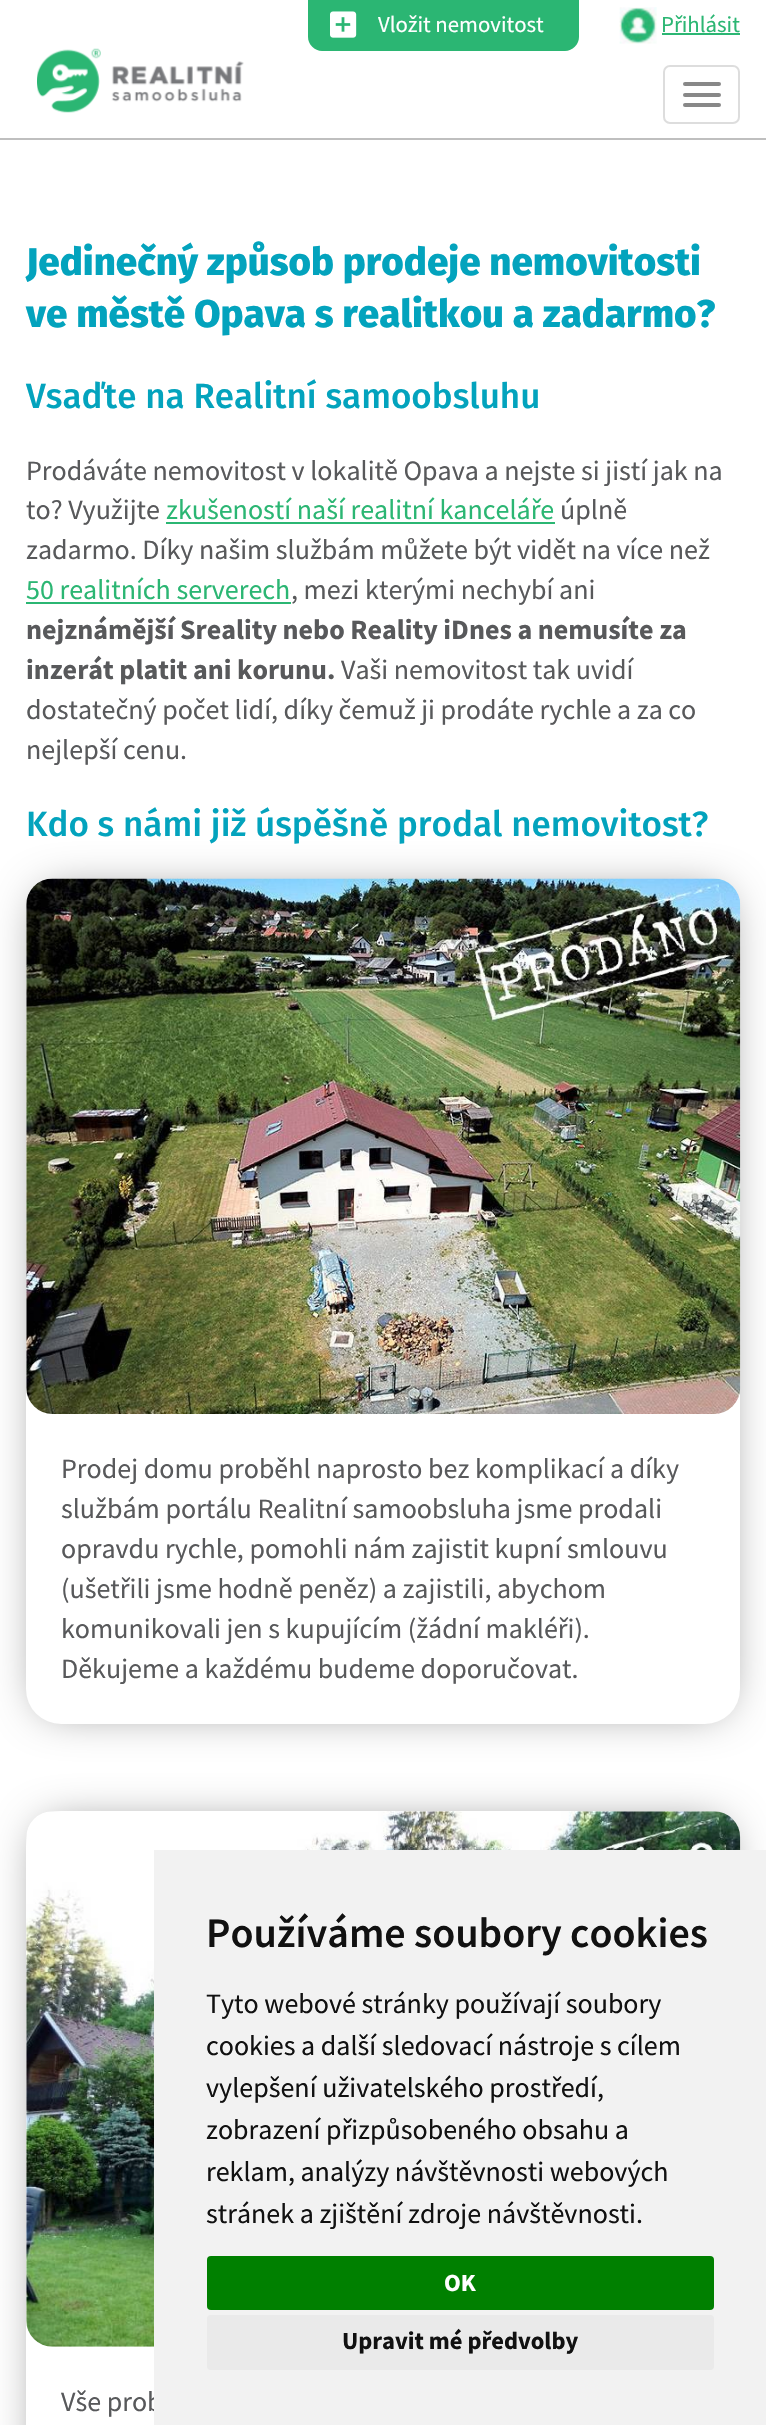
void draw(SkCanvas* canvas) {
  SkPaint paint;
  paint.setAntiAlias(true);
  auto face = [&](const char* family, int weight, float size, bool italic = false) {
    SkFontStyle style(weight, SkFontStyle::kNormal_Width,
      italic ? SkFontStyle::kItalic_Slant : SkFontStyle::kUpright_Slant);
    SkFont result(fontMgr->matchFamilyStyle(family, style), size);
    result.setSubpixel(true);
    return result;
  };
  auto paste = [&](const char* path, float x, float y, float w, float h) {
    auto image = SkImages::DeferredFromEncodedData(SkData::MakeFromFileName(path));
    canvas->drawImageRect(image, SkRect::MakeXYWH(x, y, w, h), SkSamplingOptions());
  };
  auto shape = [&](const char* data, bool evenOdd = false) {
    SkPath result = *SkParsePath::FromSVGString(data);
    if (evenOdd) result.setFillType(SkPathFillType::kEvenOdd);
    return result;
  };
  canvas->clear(0xffffffff);
  paint.setColor(0xffbfbfbf);
  canvas->drawRect(SkRect::MakeXYWH(0, 138, 766, 2), paint);
  paint.setColor(0xff2bb673);
  canvas->drawPath(shape("M308 0H579V37C579 44.5 572.5 51 565 51H322C314.5 51 308 44.5 308 37Z"), paint);
  paste("img/1.png", 330, 11, 27, 27);
  paste("img/2.png", 619, 7, 38, 37);
  canvas->drawRect(SkRect::MakeXYWH(662, 33, 78, 2), paint);
  paste("img/3.png", 37, 48, 207, 65);
  paint.setStroke(true);
  paint.setStrokeWidth(2);
  paint.setColor(0xffdddddd);
  canvas->drawRoundRect(SkRect::MakeXYWH(664, 66, 75, 57), 6, 6, paint);
  paint.setStroke(false);
  paint.setColor(0xff888888);
  canvas->drawRoundRect(SkRect::MakeXYWH(683, 82, 38, 4), 2, 2, paint);
  canvas->drawRoundRect(SkRect::MakeXYWH(683, 93, 38, 4), 2, 2, paint);
  canvas->drawRoundRect(SkRect::MakeXYWH(683, 103, 38, 4), 2, 2, paint);
  paint.setColor(0xff2bb673);
  canvas->drawRect(SkRect::MakeXYWH(166, 522, 389, 2), paint);
  canvas->drawRect(SkRect::MakeXYWH(26, 602, 265, 2), paint);
  paint.setColor(0x82000000);
  paint.setMaskFilter(SkMaskFilter::MakeBlur(kNormal_SkBlurStyle, 22));
  canvas->drawRoundRect(SkRect::MakeXYWH(40, 893, 686, 817), 21, 21, paint);
  paint.setMaskFilter(nullptr);
  paint.setColor(0xffffffff);
  canvas->drawRoundRect(SkRect::MakeXYWH(26, 879, 714, 845), 35, 35, paint);
  paste("img/4.png", 26, 878, 715, 536);
  paint.setColor(0x82000000);
  paint.setMaskFilter(SkMaskFilter::MakeBlur(kNormal_SkBlurStyle, 22));
  canvas->drawRoundRect(SkRect::MakeXYWH(40, 1825, 686, 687), 21, 21, paint);
  paint.setMaskFilter(nullptr);
  paint.setColor(0xffffffff);
  canvas->drawRoundRect(SkRect::MakeXYWH(26, 1811, 714, 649), 35, 35, paint);
  paste("img/5.png", 26, 1811, 715, 536);
  auto f0 = face("Source Sans Pro", 400, 22.75f);
  canvas->drawString("Vložit nemovitost", 378, 32, f0, paint);
  paint.setColor(0xff2bb673);
  canvas->drawString("Přihlásit", 661, 32, f0, paint);
  auto f1 = face("Fira Sans", 800, 38.5f);
  paint.setColor(0xff03a3bd);
  canvas->drawString("Jedinečný způsob prodeje nemovitosti", 26, 275, f1, paint);
  canvas->drawString("ve městě Opava s realitkou a zadarmo?", 26, 327, f1, paint);
  auto f2 = face("Fira Sans", 500, 35);
  canvas->drawString("Vsaďte na Realitní samoobsluhu", 26, 408, f2, paint);
  auto f3 = face("Source Sans Pro", 400, 28);
  paint.setColor(0xff58595b);
  canvas->drawString("Prodáváte nemovitost v lokalitě Opava a nejste si jistí jak na", 26, 480, f3, paint);
  canvas->drawString("to? Využijte", 26, 519, f3, paint);
  paint.setColor(0xff2bb673);
  canvas->drawString("zkušeností naší realitní kanceláře", 166, 519, f3, paint);
  paint.setColor(0xff58595b);
  canvas->drawString("úplně", 560, 519, f3, paint);
  canvas->drawString("zadarmo. Díky našim službám můžete být vidět na více než", 26, 559, f3, paint);
  paint.setColor(0xff2bb673);
  canvas->drawString("50 realitních serverech", 26, 599, f3, paint);
  paint.setColor(0xff58595b);
  canvas->drawString(", mezi kterými nechybí ani", 291, 599, f3, paint);
  auto f4 = face("Source Sans Pro", 700, 28);
  canvas->drawString("nejznámější Sreality nebo Reality iDnes a nemusíte za", 26, 639, f4, paint);
  canvas->drawString("inzerát platit ani korunu.", 26, 679, f4, paint);
  {
    const struct { const char* s; float x, y; } items[] = {
      {"Vaši nemovitost tak uvidí", 341, 679},
      {"dostatečný počet lidí, díky čemuž ji prodáte rychle a za co", 26, 719},
      {"nejlepší cenu.", 26, 759},
    };
    for (auto [s, x, y] : items) {
      canvas->drawString(s, x, y, f3, paint);
    }
  }
  paint.setColor(0xff03a3bd);
  canvas->drawString("Kdo s námi již úspěšně prodal nemovitost?", 26, 836, f2, paint);
  paint.setColor(0xff58595b);
  {
    const struct { const char* s; float x, y; } items[] = {
      {"Prodej domu proběhl naprosto bez komplikací a díky", 61, 1478},
      {"službám portálu Realitní samoobsluha jsme prodali", 61, 1518},
      {"opravdu rychle, pomohli nám zajistit kupní smlouvu", 61, 1558},
      {"(ušetřili jsme hodně peněz) a zajistili, abychom", 61, 1598},
      {"komunikovali jen s kupujícím (žádní makléři).", 61, 1638},
      {"Děkujeme a každému budeme doporučovat.", 61, 1678},
      {"Vše prob", 61, 2411},
    };
    for (auto [s, x, y] : items) {
      canvas->drawString(s, x, y, f3, paint);
    }
  }
  paint.setColor(0xfff2f2f2);
  canvas->drawRect(SkRect::MakeXYWH(154, 1850, 612, 575), paint);
  auto f5 = face("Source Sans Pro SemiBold", 600, 42);
  paint.setColor(0xff111111);
  canvas->drawString("Používáme soubory cookies", 206, 1947, f5, paint);
  {
    const struct { const char* s; float x, y; } items[] = {
      {"Tyto webové stránky používají soubory", 206, 2013},
      {"cookies a další sledovací nástroje s cílem", 206, 2055},
      {"vylepšení uživatelského prostředí,", 206, 2097},
      {"zobrazení přizpůsobeného obsahu a", 206, 2139},
      {"reklam, analýzy návštěvnosti webových", 206, 2181},
      {"stránek a zjištění zdroje návštěvnosti.", 206, 2223},
    };
    for (auto [s, x, y] : items) {
      canvas->drawString(s, x, y, f3, paint);
    }
  }
  paint.setColor(0xff008000);
  canvas->drawRoundRect(SkRect::MakeXYWH(207, 2256, 507, 54), 4, 4, paint);
  auto f6 = face("Source Sans Pro", 700, 24.5f);
  paint.setColor(0xffffffff);
  canvas->drawString("OK", 444, 2291, f6, paint);
  paint.setColor(0xffeaeaea);
  canvas->drawRoundRect(SkRect::MakeXYWH(207, 2315, 507, 55), 4, 4, paint);
  paint.setColor(0xff111111);
  canvas->drawString("Upravit mé předvolby", 342, 2349, f6, paint);
}
